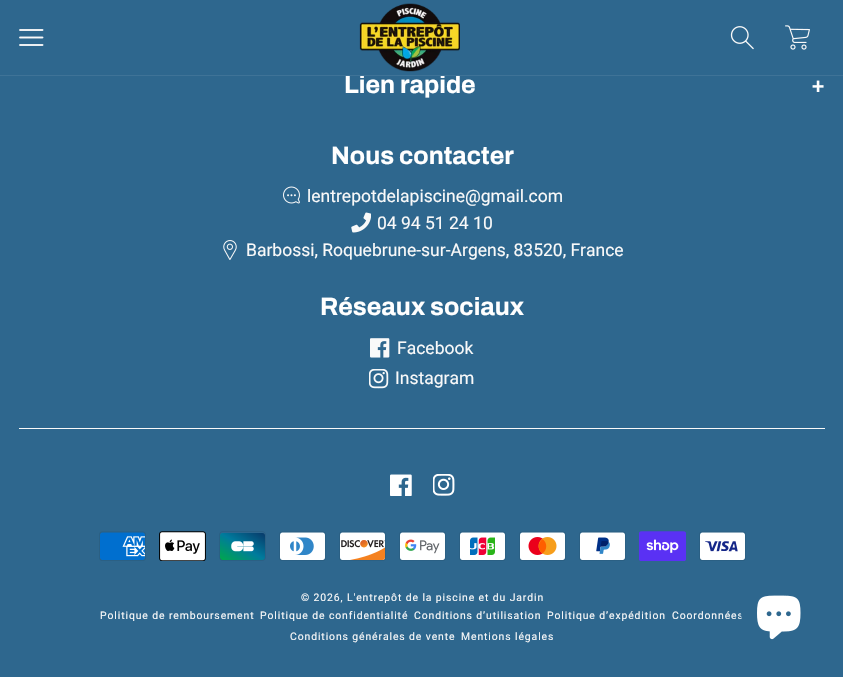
void draw(SkCanvas* canvas) {
  SkPaint paint;
  paint.setAntiAlias(true);
  auto face = [&](const char* family, int weight, float size, bool italic = false) {
    SkFontStyle style(weight, SkFontStyle::kNormal_Width,
      italic ? SkFontStyle::kItalic_Slant : SkFontStyle::kUpright_Slant);
    SkFont result(fontMgr->matchFamilyStyle(family, style), size);
    result.setSubpixel(true);
    return result;
  };
  auto writeSpaced = [&](const char* s, float x, float y, const SkFont& font, const SkPaint& ink, float letter, float word) {
    std::vector<SkGlyphID> glyphs(font.countText(s, strlen(s), SkTextEncoding::kUTF8));
    std::vector<float> xs(glyphs.size());
    font.textToGlyphs(s, strlen(s), SkTextEncoding::kUTF8, glyphs);
    font.getXPos(glyphs, xs, x);
    float extra = 0;
    for (size_t i = 0; i < glyphs.size(); i++) {
      xs[i] += extra;
      extra += letter + word * (glyphs[i] == font.unicharToGlyph(' '));
    }
    canvas->drawTextBlob(SkTextBlob::MakeFromPosHGlyphs(glyphs, xs, y, font), 0, 0, ink);
  };
  auto paste = [&](const char* path, float x, float y, float w, float h) {
    auto image = SkImages::DeferredFromEncodedData(SkData::MakeFromFileName(path));
    canvas->drawImageRect(image, SkRect::MakeXYWH(x, y, w, h), SkSamplingOptions());
  };
  canvas->clear(0xff2e678e);
  paste("img/1.png", 19, 29, 25, 17);
  paste("img/2.png", 359, 3, 101, 69);
  paste("img/3.png", 730, 26, 24, 24);
  paste("img/4.png", 785, 25, 25, 25);
  paste("img/5.png", 283, 186, 17, 18);
  paste("img/6.png", 351, 212, 20, 21);
  paste("img/7.png", 223, 240, 14, 20);
  paste("img/8.png", 370, 338, 20, 20);
  paste("img/9.png", 369, 369, 20, 20);
  paint.setColor(0xfff9f9f9);
  canvas->drawRect(SkRect::MakeXYWH(19, 428, 806, 1), paint);
  paste("img/10.png", 390, 474, 22, 22);
  paste("img/11.png", 433, 474, 22, 22);
  paste("img/12.png", 99, 531, 47, 30);
  paste("img/13.png", 159, 531, 47, 30);
  paste("img/14.png", 219, 531, 47, 30);
  paste("img/15.png", 279, 531, 47, 30);
  paste("img/16.png", 339, 531, 47, 30);
  paste("img/17.png", 399, 531, 47, 30);
  paste("img/18.png", 459, 531, 47, 30);
  paste("img/19.png", 519, 531, 47, 30);
  paste("img/20.png", 579, 531, 47, 30);
  paste("img/21.png", 639, 531, 47, 30);
  paste("img/22.png", 699, 531, 47, 30);
  auto f0 = face("Archivo", 700, 25);
  paint.setColor(0xffffffff);
  canvas->drawString("Lien rapide", 344, 93, f0, paint);
  paint.setColor(0xff3f7397);
  canvas->drawRect(SkRect::MakeXYWH(0, 75, 843, 1), paint);
  paint.setColor(0xff2e678e);
  canvas->drawRect(SkRect::MakeXYWH(360, 74, 99, 1), paint);
  auto f1 = face("Archivo", 700, 22);
  paint.setColor(0xffffffff);
  canvas->drawString("+", 811, 92, f1, paint);
  canvas->drawString("Nous contacter", 331, 164, f0, paint);
  auto f2 = face("Roboto", 400, 17.5f);
  paint.setColor(0xfff9f9f9);
  {
    const struct { const char* s; float x, y; } items[] = {
      {"lentrepotdelapiscine@gmail.com", 307, 202},
      {"04 94 51 24 10", 377, 229},
      {"Barbossi, Roquebrune-sur-Argens, 83520, France", 246, 256},
    };
    for (auto [s, x, y] : items) {
      canvas->drawString(s, x, y, f2, paint);
    }
  }
  paint.setColor(0xffffffff);
  canvas->drawString("Réseaux sociaux", 320, 315, f0, paint);
  paint.setColor(0xfff9f9f9);
  canvas->drawString("Facebook", 397, 354, f2, paint);
  canvas->drawString("Instagram", 395, 384, f2, paint);
  auto f3 = face("Roboto", 400, 10.4f);
  {
    const struct { const char* s; float x, y; } items[] = {
      {"© 2026, L'entrepôt de la piscine et du Jardin", 301, 601},
      {"Politique de remboursement", 100, 619},
      {"Politique de confidentialité", 260, 619},
      {"Conditions d’utilisation", 414, 619},
      {"Politique d’expédition", 547, 619},
      {"Coordonnées", 672, 619},
      {"Conditions générales de vente", 290, 640},
      {"Mentions légales", 461, 640},
    };
    for (auto [s, x, y] : items) {
      writeSpaced(s, x, y, f3, paint, 0.9f, 0);
    }
  }
  paint.setColor(0xff2e678e);
  canvas->drawCircle(778.5f, 613.5f, 37.5f, paint);
  paste("img/23.png", 757, 595, 44, 45);
}
